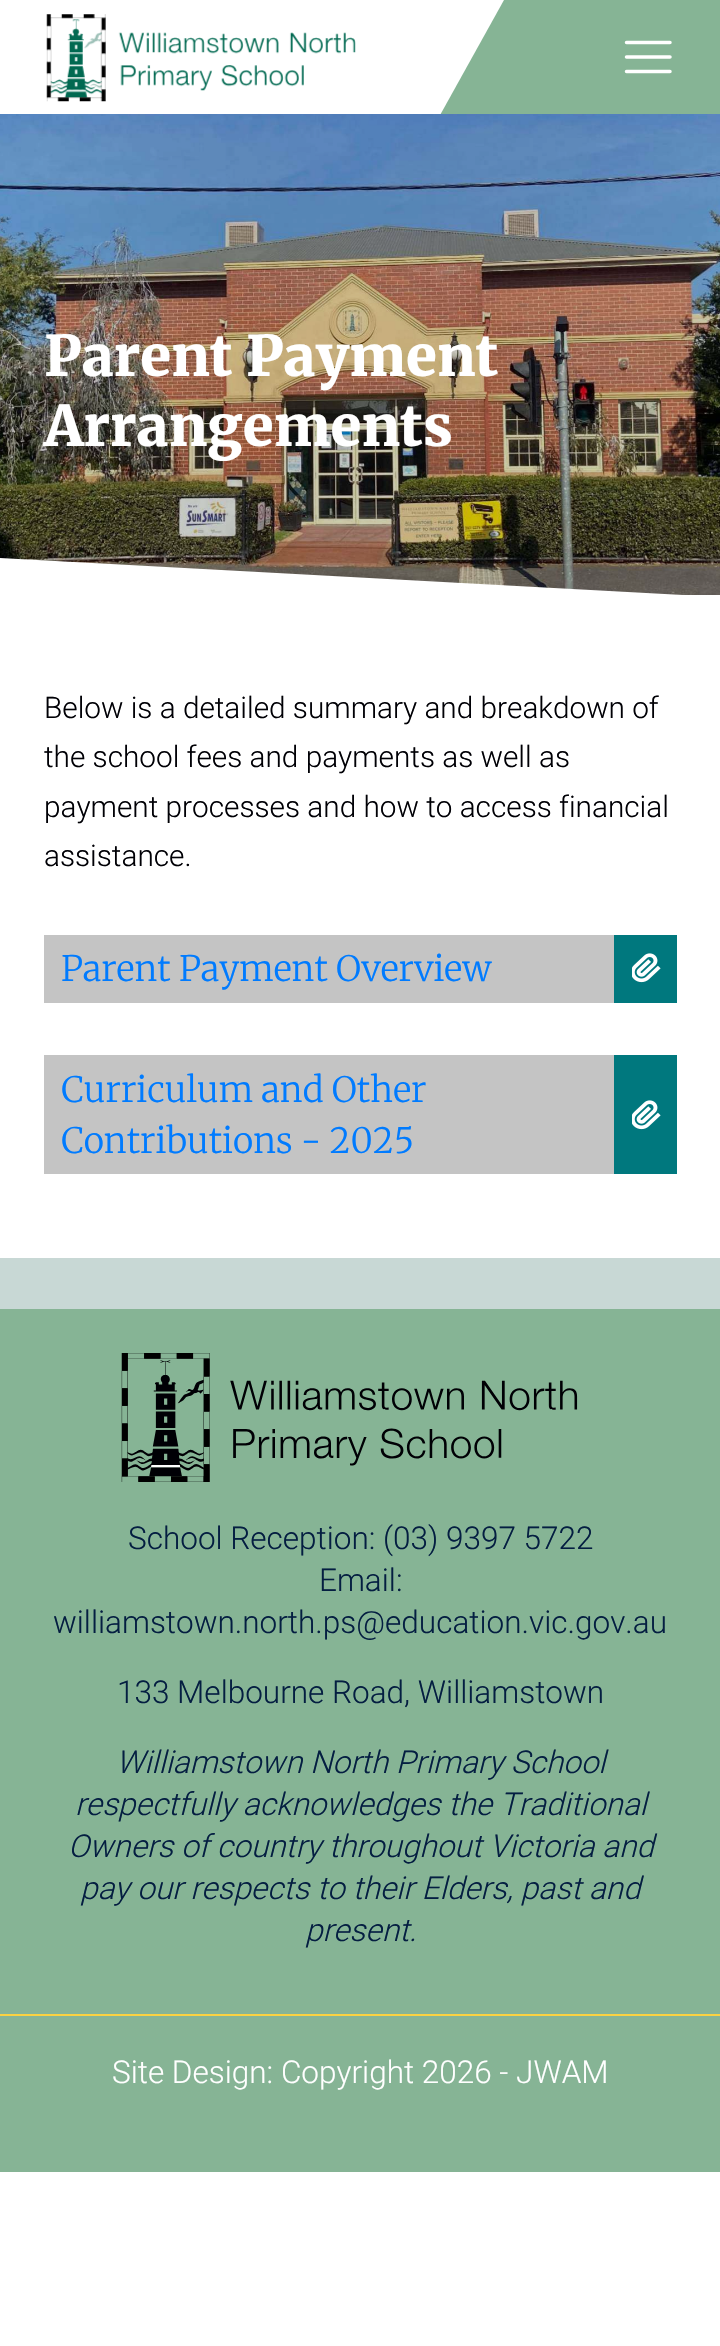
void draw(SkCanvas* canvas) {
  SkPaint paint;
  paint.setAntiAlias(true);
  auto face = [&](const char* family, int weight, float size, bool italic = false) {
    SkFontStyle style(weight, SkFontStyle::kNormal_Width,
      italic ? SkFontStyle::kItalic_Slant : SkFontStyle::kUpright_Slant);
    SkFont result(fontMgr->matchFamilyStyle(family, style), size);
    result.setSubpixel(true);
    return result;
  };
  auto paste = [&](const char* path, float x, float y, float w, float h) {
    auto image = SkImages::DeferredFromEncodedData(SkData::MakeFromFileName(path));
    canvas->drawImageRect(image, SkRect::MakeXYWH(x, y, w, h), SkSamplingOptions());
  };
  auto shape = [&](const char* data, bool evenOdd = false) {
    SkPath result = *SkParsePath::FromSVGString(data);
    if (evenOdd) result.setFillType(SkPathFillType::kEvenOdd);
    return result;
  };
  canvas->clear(0xffffffff);
  paint.setColor(0xff86b495);
  canvas->drawRect(SkRect::MakeXYWH(440, 0, 280, 114), paint);
  canvas->save();
  canvas->clipRect(SkRect::MakeXYWH(289, 0, 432, 114));
  paint.setColor(0xffffffff);
  canvas->drawPath(shape("M289 0H504L289 387Z"), paint);
  canvas->restore();
  paste("img/1.png", 46, 14, 310, 88);
  paint.setStroke(true);
  paint.setStrokeWidth(3.5f);
  paint.setStrokeCap(SkPaint::kRound_Cap);
  paint.setStrokeJoin(SkPaint::kRound_Join);
  canvas->drawPath(shape("M626.5 57H670M626.5 42.5H670M626.5 71.5H670"), paint);
  paste("img/2.png", 0, 114, 720, 481);
  paint.setStroke(false);
  canvas->drawPath(shape("M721 597H0V558Z"), paint);
  paint.setColor(0xffc4c4c4);
  canvas->drawRect(SkRect::MakeXYWH(44, 935, 570, 68), paint);
  paint.setColor(0xff00787e);
  canvas->drawRect(SkRect::MakeXYWH(614, 935, 63, 68), paint);
  paste("img/3.png", 632, 953, 29, 30);
  paint.setColor(0xffc4c4c4);
  canvas->drawRect(SkRect::MakeXYWH(44, 1055, 570, 119), paint);
  paint.setColor(0xff00787e);
  canvas->drawRect(SkRect::MakeXYWH(614, 1055, 63, 119), paint);
  paste("img/3.png", 632, 1100, 29, 30);
  paint.setColor(0xff86b495);
  canvas->drawRect(SkRect::MakeXYWH(0, 1309, 720, 863), paint);
  paint.setColor(0xffc8d8d5);
  canvas->drawRect(SkRect::MakeXYWH(0, 1258, 720, 51), paint);
  paste("img/4.png", 121, 1353, 457, 129);
  paint.setColor(0xfffad241);
  canvas->drawRect(SkRect::MakeXYWH(0, 2014, 720, 2), paint);
  auto f0 = face("Merriweather", 900, 56);
  paint.setColor(0xffffffff);
  canvas->drawString("Parent Payment", 44, 376, f0, paint);
  canvas->drawString("Arrangements", 44, 446, f0, paint);
  auto f1 = face("Roboto", 300, 29.75f);
  paint.setColor(0xff000005);
  {
    const struct { const char* s; float x, y; } items[] = {
      {"Below is a detailed summary and breakdown of", 44, 718},
      {"the school fees and payments as well as", 44, 767},
      {"payment processes and how to access financial", 44, 817},
      {"assistance.", 44, 866},
    };
    for (auto [s, x, y] : items) {
      canvas->drawString(s, x, y, f1, paint);
    }
  }
  auto f2 = face("Merriweather", 300, 35);
  paint.setColor(0xff007bff);
  {
    const struct { const char* s; float x, y; } items[] = {
      {"Parent Payment Overview", 61, 981},
      {"Curriculum and Other", 61, 1102},
      {"Contributions - 2025", 61, 1153},
    };
    for (auto [s, x, y] : items) {
      canvas->drawString(s, x, y, f2, paint);
    }
  }
  auto f3 = face("Roboto", 300, 31.5f);
  paint.setColor(0xff041e41);
  {
    const struct { const char* s; float x, y; } items[] = {
      {"School Reception: (03) 9397 5722", 128, 1549},
      {"Email:", 319, 1591},
      {"williamstown.north.ps@education.vic.gov.au", 53, 1633},
      {"133 Melbourne Road, Williamstown", 117, 1703},
    };
    for (auto [s, x, y] : items) {
      canvas->drawString(s, x, y, f3, paint);
    }
  }
  auto f4 = face("Roboto", 300, 31.5f, true);
  {
    const struct { const char* s; float x, y; } items[] = {
      {"Williamstown North Primary School", 116, 1773},
      {"respectfully acknowledges the Traditional", 75, 1815},
      {"Owners of country throughout Victoria and", 68, 1857},
      {"pay our respects to their Elders, past and", 80, 1899},
      {"present.", 305, 1941},
    };
    for (auto [s, x, y] : items) {
      canvas->drawString(s, x, y, f4, paint);
    }
  }
  paint.setColor(0xffffffff);
  canvas->drawString("Site Design: Copyright 2026 - JWAM", 112, 2083, f3, paint);
}
